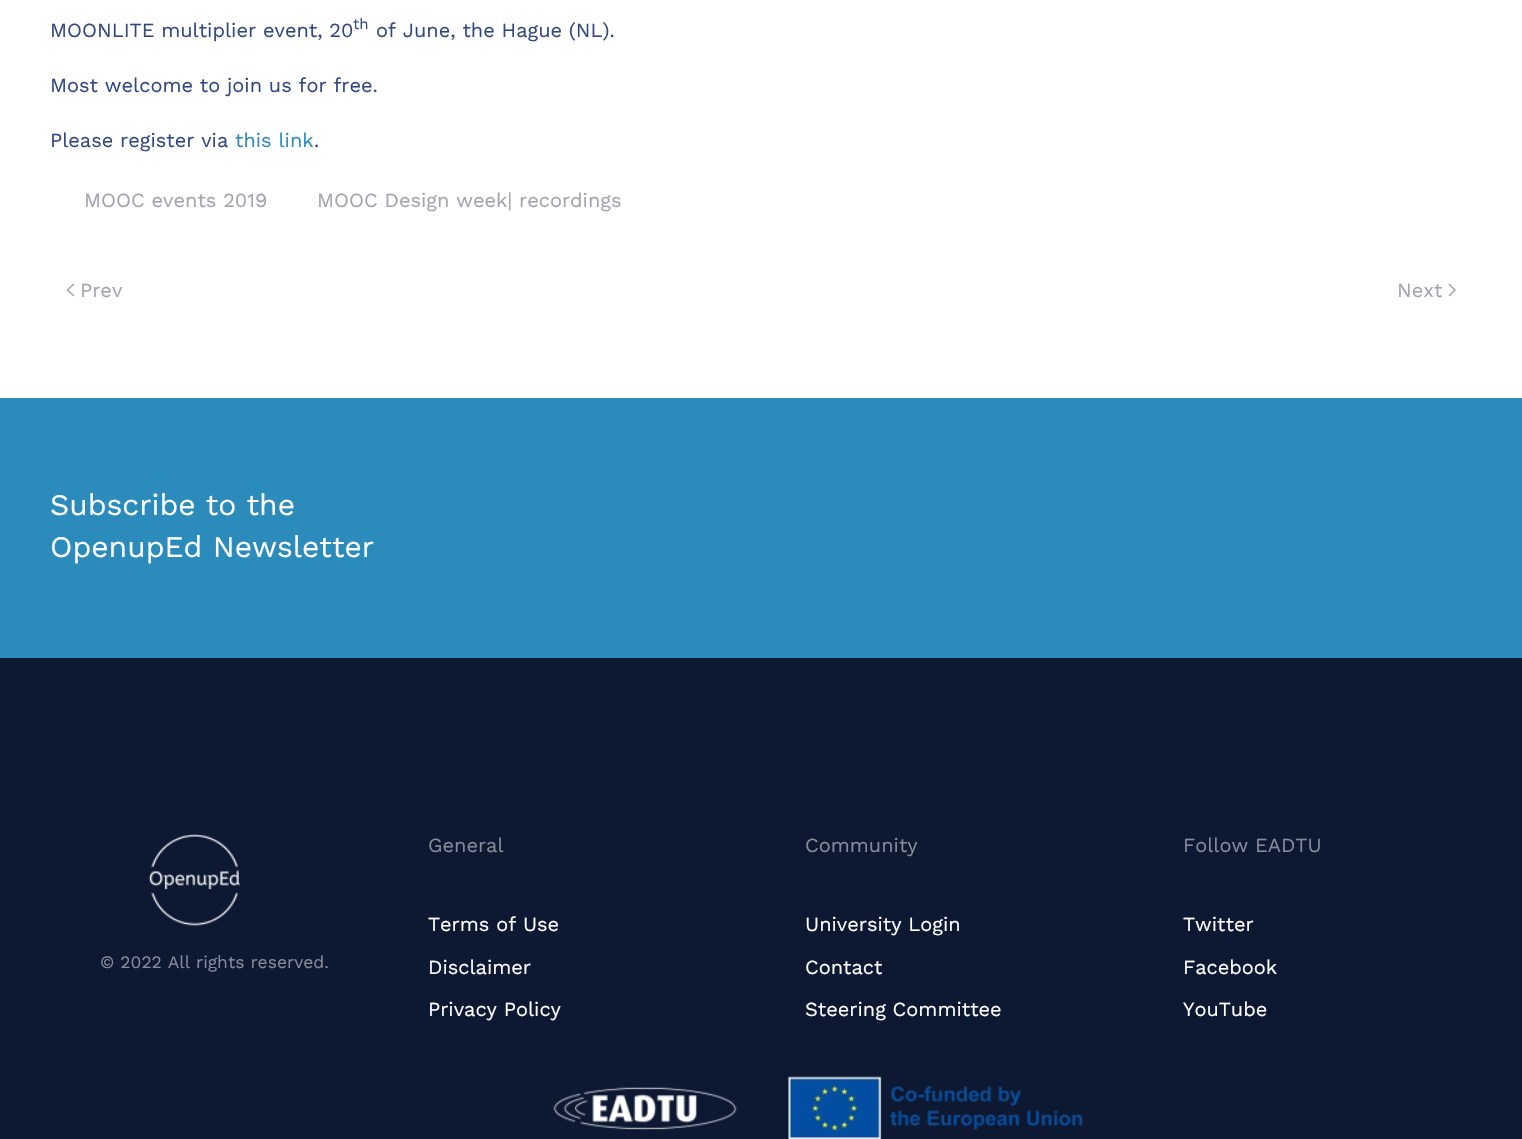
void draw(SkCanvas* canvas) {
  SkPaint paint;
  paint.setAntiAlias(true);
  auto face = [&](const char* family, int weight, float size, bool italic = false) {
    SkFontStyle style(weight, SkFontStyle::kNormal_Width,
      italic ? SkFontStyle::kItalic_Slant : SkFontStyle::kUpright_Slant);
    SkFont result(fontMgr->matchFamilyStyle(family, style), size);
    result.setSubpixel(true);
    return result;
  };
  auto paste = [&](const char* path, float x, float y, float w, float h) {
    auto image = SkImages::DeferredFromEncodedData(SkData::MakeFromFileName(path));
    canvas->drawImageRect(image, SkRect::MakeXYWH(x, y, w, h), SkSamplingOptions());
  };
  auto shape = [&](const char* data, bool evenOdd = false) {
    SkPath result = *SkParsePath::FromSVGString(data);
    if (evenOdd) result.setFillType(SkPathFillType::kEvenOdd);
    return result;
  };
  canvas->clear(0xffffffff);
  paint.setStroke(true);
  paint.setStrokeWidth(1.5f);
  paint.setColor(0xffa3a3b0);
  canvas->drawPath(shape("M74 284L67.5 290L74 296"), paint);
  canvas->drawPath(shape("M1449 284L1455 290L1449 296"), paint);
  paint.setStroke(false);
  paint.setColor(0xff2b8cbc);
  canvas->drawRect(SkRect::MakeXYWH(0, 398, 1522, 260), paint);
  paint.setColor(0xff0d1933);
  canvas->drawRect(SkRect::MakeXYWH(0, 658, 1522, 481), paint);
  paste("img/1.png", 148, 834, 93, 92);
  paste("img/2.png", 553, 1087, 184, 43);
  paste("img/3.png", 788, 1076, 295, 63);
  auto f0 = face("Work Sans", 400, 20);
  paint.setColor(0xff32477e);
  canvas->drawString("MOONLITE multiplier event, 20", 50, 37, f0, paint);
  auto f1 = face("Work Sans", 400, 15);
  canvas->drawString("th", 353, 29, f1, paint);
  {
    const struct { const char* s; float x, y; } items[] = {
      {"of June, the Hague (NL).", 376, 37},
      {"Most welcome to join us for free.", 50, 92},
      {"Please register via", 50, 147},
    };
    for (auto [s, x, y] : items) {
      canvas->drawString(s, x, y, f0, paint);
    }
  }
  paint.setColor(0xff2b8cbc);
  canvas->drawString("this link", 235, 147, f0, paint);
  paint.setColor(0xff32477e);
  canvas->drawString(".", 314, 147, f0, paint);
  paint.setColor(0xffa3a3b0);
  {
    const struct { const char* s; float x, y; } items[] = {
      {"MOOC events 2019", 84, 207},
      {"MOOC Design week| recordings", 317, 207},
      {"Prev", 80, 297},
      {"Next", 1397, 297},
    };
    for (auto [s, x, y] : items) {
      canvas->drawString(s, x, y, f0, paint);
    }
  }
  auto f2 = face("Work Sans", 400, 30);
  paint.setColor(0xffffffff);
  canvas->drawString("Subscribe to the", 50, 515, f2, paint);
  canvas->drawString("OpenupEd Newsletter", 50, 557, f2, paint);
  auto f3 = face("Work Sans", 400, 17.5f);
  paint.setColor(0xff868c99);
  canvas->drawString("© 2022 All rights reserved.", 100, 968, f3, paint);
  canvas->drawString("General", 428, 852, f0, paint);
  paint.setColor(0xffffffff);
  {
    const struct { const char* s; float x, y; } items[] = {
      {"Terms of Use", 428, 931},
      {"Disclaimer", 428, 974},
      {"Privacy Policy", 428, 1016},
    };
    for (auto [s, x, y] : items) {
      canvas->drawString(s, x, y, f0, paint);
    }
  }
  paint.setColor(0xff868c99);
  canvas->drawString("Community", 805, 852, f0, paint);
  paint.setColor(0xffffffff);
  {
    const struct { const char* s; float x, y; } items[] = {
      {"University Login", 805, 931},
      {"Contact", 805, 974},
      {"Steering Committee", 805, 1016},
    };
    for (auto [s, x, y] : items) {
      canvas->drawString(s, x, y, f0, paint);
    }
  }
  paint.setColor(0xff868c99);
  canvas->drawString("Follow EADTU", 1183, 852, f0, paint);
  paint.setColor(0xffffffff);
  {
    const struct { const char* s; float x, y; } items[] = {
      {"Twitter", 1183, 931},
      {"Facebook", 1183, 974},
      {"YouTube", 1183, 1016},
    };
    for (auto [s, x, y] : items) {
      canvas->drawString(s, x, y, f0, paint);
    }
  }
}
